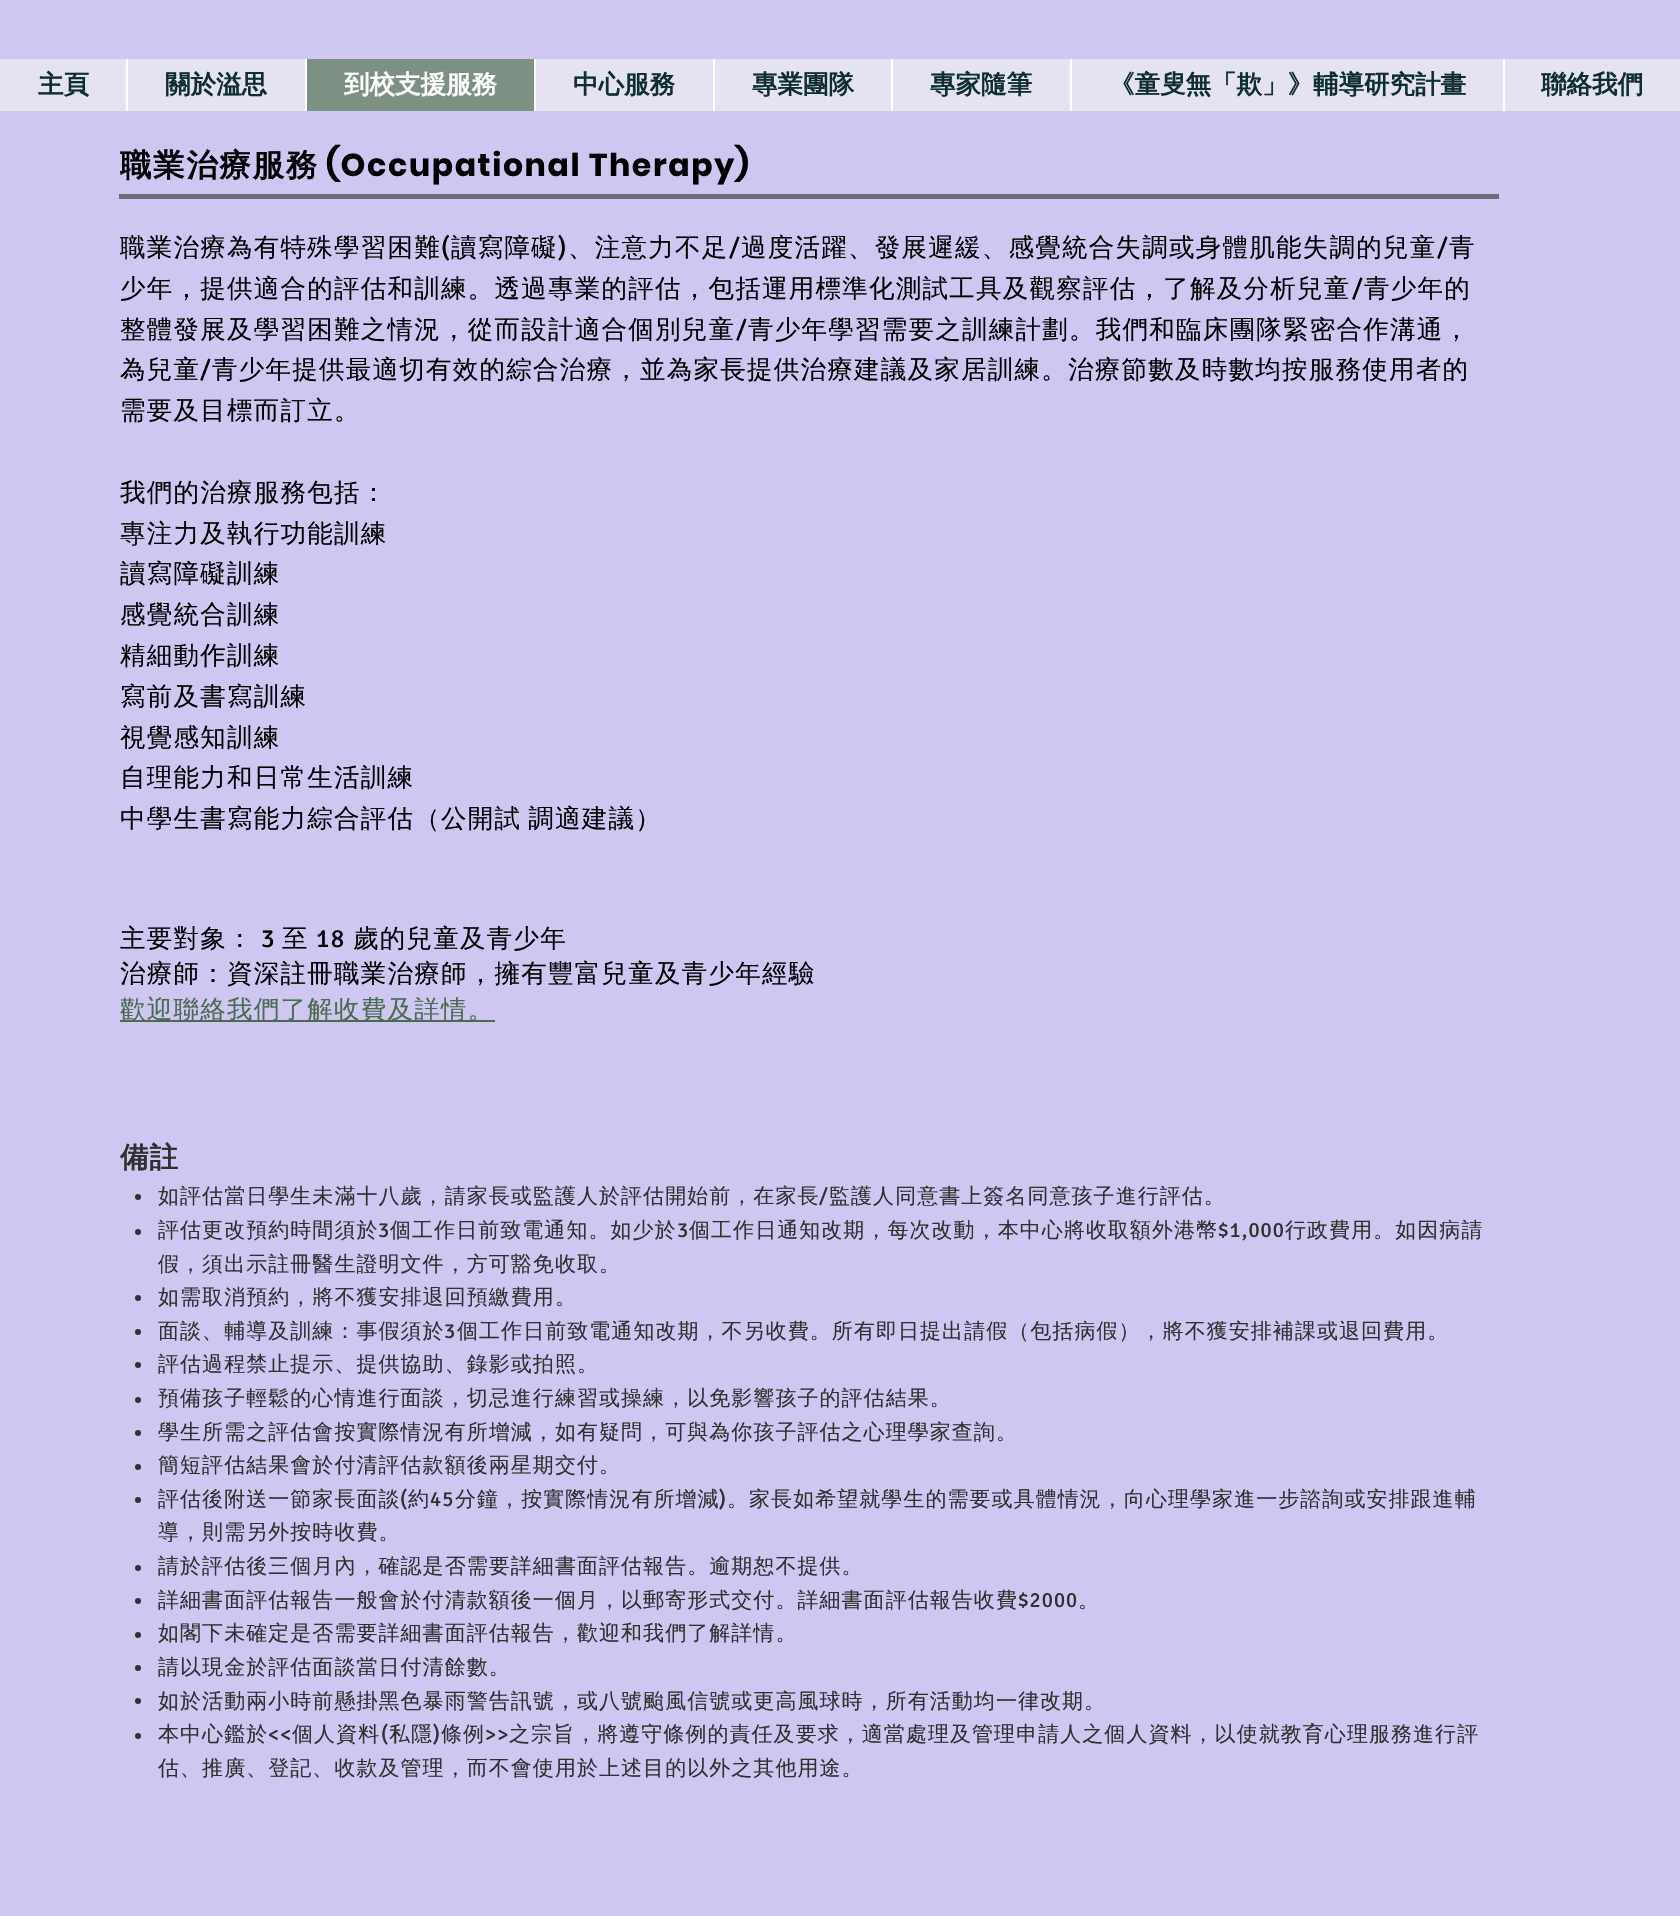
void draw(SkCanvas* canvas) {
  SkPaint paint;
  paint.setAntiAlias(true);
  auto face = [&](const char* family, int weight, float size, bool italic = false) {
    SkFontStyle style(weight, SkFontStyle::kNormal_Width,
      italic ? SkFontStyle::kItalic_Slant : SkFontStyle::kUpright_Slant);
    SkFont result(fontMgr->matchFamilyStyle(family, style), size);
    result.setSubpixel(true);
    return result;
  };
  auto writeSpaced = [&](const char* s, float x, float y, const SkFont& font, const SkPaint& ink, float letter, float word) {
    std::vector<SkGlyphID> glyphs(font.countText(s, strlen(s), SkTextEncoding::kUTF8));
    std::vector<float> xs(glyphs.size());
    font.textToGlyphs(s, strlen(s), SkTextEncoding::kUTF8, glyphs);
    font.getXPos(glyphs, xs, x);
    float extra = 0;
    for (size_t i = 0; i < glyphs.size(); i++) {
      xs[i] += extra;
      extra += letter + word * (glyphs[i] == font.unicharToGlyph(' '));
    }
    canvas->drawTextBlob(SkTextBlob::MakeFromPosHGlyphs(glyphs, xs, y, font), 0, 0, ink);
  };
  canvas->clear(0xffcfc7f2);
  {
    const struct { float x, y, w, h; SkColor color; } items[] = {
      {0, 59, 1680, 52, 0xffe5e2f1},
      {126, 59, 2, 52, 0xffffffff},
      {307, 59, 227, 52, 0xff7c9183},
      {305, 59, 2, 52, 0xffffffff},
      {534, 59, 2, 52, 0xffffffff},
      {713, 59, 2, 52, 0xffffffff},
      {891, 59, 2, 52, 0xffffffff},
      {1070, 59, 2, 52, 0xffffffff},
      {1503, 59, 2, 52, 0xffffffff},
      {120, 1020, 375, 2, 0xff4a6b4f},
    };
    for (auto [x, y, w, h, color] : items) {
      paint.setColor(color);
      canvas->drawRect(SkRect::MakeXYWH(x, y, w, h), paint);
    }
  }
  paint.setColor(0xff303030);
  canvas->drawCircle(138, 1197, 3, paint);
  canvas->drawCircle(138, 1232, 3, paint);
  canvas->drawCircle(138, 1298, 3, paint);
  canvas->drawCircle(138, 1332, 3, paint);
  canvas->drawCircle(138, 1365, 3, paint);
  canvas->drawCircle(138, 1400, 3, paint);
  canvas->drawCircle(138, 1433, 3, paint);
  canvas->drawCircle(138, 1467, 3, paint);
  canvas->drawCircle(138, 1500, 3, paint);
  canvas->drawCircle(138, 1568, 3, paint);
  canvas->drawCircle(138, 1601, 3, paint);
  canvas->drawCircle(138, 1635, 3, paint);
  canvas->drawCircle(138, 1668, 3, paint);
  canvas->drawCircle(138, 1701, 3, paint);
  canvas->drawCircle(138, 1736, 3, paint);
  paint.setColor(0xff6e6b79);
  canvas->drawRect(SkRect::MakeXYWH(119, 194, 1380, 5), paint);
  auto f0 = face("WenQuanYi Zen Hei", 700, 25.5f);
  paint.setColor(0xff0e2e34);
  canvas->drawString("主頁", 38, 93, f0, paint);
  canvas->drawString("關於溢思", 165, 93, f0, paint);
  paint.setColor(0xffffffff);
  canvas->drawString("到校支援服務", 344, 93, f0, paint);
  paint.setColor(0xff0e2e34);
  {
    const struct { const char* s; float x, y; } items[] = {
      {"中心服務", 573, 93},
      {"專業團隊", 752, 93},
      {"專家隨筆", 930, 93},
      {"《童叟無「欺」》輔導研究計畫", 1109, 93},
      {"聯絡我們", 1541, 93},
    };
    for (auto [s, x, y] : items) {
      canvas->drawString(s, x, y, f0, paint);
    }
  }
  auto f1 = face("WenQuanYi Zen Hei", 700, 31.5f);
  paint.setColor(0xff000000);
  writeSpaced("職業治療服務", 120, 176, f1, paint, 1.6f, 0);
  auto f2 = face("Poppins", 700, 31.5f);
  writeSpaced("(Occupational Therapy)", 326, 176, f2, paint, 1.6f, 0);
  auto f3 = face("WenQuanYi Zen Hei", 500, 25.5f);
  writeSpaced("職業治療為有特殊學習困難", 120, 256, f3, paint, 1.25f, 0);
  auto f4 = face("Signika", 400, 25.5f);
  writeSpaced("(", 441, 256, f4, paint, 1.25f, 0);
  writeSpaced("讀寫障礙", 451, 256, f3, paint, 1.25f, 0);
  writeSpaced(")", 558, 256, f4, paint, 1.25f, 0);
  writeSpaced("、注意力不足", 568, 256, f3, paint, 1.25f, 0);
  writeSpaced("/", 729, 256, f4, paint, 1.25f, 0);
  writeSpaced("過度活躍、發展遲緩、感覺統合失調或身體肌能失調的兒童", 741, 256, f3, paint, 1.25f, 0);
  writeSpaced("/", 1437, 256, f4, paint, 1.25f, 0);
  writeSpaced("青", 1449, 256, f3, paint, 1.25f, 0);
  writeSpaced("少年，提供適合的評估和訓練。透過專業的評估，包括運用標準化測試工具及觀察評估，了解及分析兒童", 120, 297, f3, paint, 1.25f, 0);
  writeSpaced("/", 1352, 297, f4, paint, 1.25f, 0);
  writeSpaced("青少年的", 1364, 297, f3, paint, 1.25f, 0);
  writeSpaced("整體發展及學習困難之情況，從而設計適合個別兒童", 120, 338, f3, paint, 1.25f, 0);
  writeSpaced("/", 736, 338, f4, paint, 1.25f, 0);
  writeSpaced("青少年學習需要之訓練計劃。我們和臨床團隊緊密合作溝通，", 748, 338, f3, paint, 1.25f, 0);
  writeSpaced("為兒童", 120, 378, f3, paint, 1.25f, 0);
  writeSpaced("/", 200, 378, f4, paint, 1.25f, 0);
  {
    const struct { const char* s; float x, y; } items[] = {
      {"青少年提供最適切有效的綜合治療，並為家長提供治療建議及家居訓練。治療節數及時數均按服務使用者的", 212, 378},
      {"需要及目標而訂立。", 120, 419},
      {"我們的治療服務包括：", 120, 501},
      {"專注力及執行功能訓練", 120, 542},
      {"讀寫障礙訓練", 120, 582},
      {"感覺統合訓練", 120, 623},
      {"精細動作訓練", 120, 664},
      {"寫前及書寫訓練", 120, 705},
      {"視覺感知訓練", 120, 746},
      {"自理能力和日常生活訓練", 120, 786},
    };
    for (auto [s, x, y] : items) {
      writeSpaced(s, x, y, f3, paint, 1.25f, 0);
    }
  }
  writeSpaced("中學生書寫能力綜合評估（公開試 調適建議）", 120, 827, f3, paint, 1.25f, -2);
  writeSpaced("主要對象：", 120, 947, f3, paint, 1.25f, 0);
  writeSpaced("3", 261, 947, f4, paint, 1.25f, 0);
  writeSpaced("至", 282, 947, f3, paint, 1.25f, 0);
  writeSpaced("18", 316, 947, f4, paint, 1.25f, 0);
  writeSpaced("歲的兒童及青少年", 353, 947, f3, paint, 1.25f, 0);
  writeSpaced("治療師：資深註冊職業治療師，擁有豐富兒童及青少年經驗", 120, 982, f3, paint, 1.25f, 0);
  paint.setColor(0xff4a6b4f);
  writeSpaced("歡迎聯絡我們了解收費及詳情。", 120, 1018, f3, paint, 1.25f, 0);
  auto f5 = face("WenQuanYi Zen Hei", 700, 28.5f);
  paint.setColor(0xff303030);
  writeSpaced("備註", 120, 1167, f5, paint, 1, 0);
  auto f6 = face("WenQuanYi Zen Hei", 500, 21);
  writeSpaced("如評估當日學生未滿十八歲，請家長或監護人於評估開始前，在家長", 158, 1203, f6, paint, 1.05f, 0);
  auto f7 = face("Signika", 400, 21);
  writeSpaced("/", 819, 1203, f7, paint, 1.05f, 0);
  writeSpaced("監護人同意書上簽名同意孩子進行評估。", 829, 1203, f6, paint, 1.05f, 0);
  writeSpaced("評估更改預約時間須於", 158, 1237, f6, paint, 1.05f, 0);
  writeSpaced("3", 378, 1237, f7, paint, 1.05f, 0);
  writeSpaced("個工作日前致電通知。如少於", 390, 1237, f6, paint, 1.05f, 0);
  writeSpaced("3", 677, 1237, f7, paint, 1.05f, 0);
  writeSpaced("個工作日通知改期，每次改動，本中心將收取額外港幣", 689, 1237, f6, paint, 1.05f, 0);
  writeSpaced("$1,000", 1218, 1237, f7, paint, 1.05f, 0);
  {
    const struct { const char* s; float x, y; } items[] = {
      {"行政費用。如因病請", 1285, 1237},
      {"假，須出示註冊醫生證明文件，方可豁免收取。", 158, 1271},
      {"如需取消預約，將不獲安排退回預繳費用。", 158, 1304},
      {"面談、輔導及訓練：事假須於", 158, 1338},
    };
    for (auto [s, x, y] : items) {
      writeSpaced(s, x, y, f6, paint, 1.05f, 0);
    }
  }
  writeSpaced("3", 444, 1338, f7, paint, 1.05f, 0);
  {
    const struct { const char* s; float x, y; } items[] = {
      {"個工作日前致電通知改期，不另收費。所有即日提出請假（包括病假），將不獲安排補課或退回費用。", 457, 1338},
      {"評估過程禁止提示、提供協助、錄影或拍照。", 158, 1371},
      {"預備孩子輕鬆的心情進行面談，切忌進行練習或操練，以免影響孩子的評估結果。", 158, 1405},
      {"學生所需之評估會按實際情況有所增減，如有疑問，可與為你孩子評估之心理學家查詢。", 158, 1439},
      {"簡短評估結果會於付清評估款額後兩星期交付。", 158, 1472},
      {"評估後附送一節家長面談", 158, 1506},
    };
    for (auto [s, x, y] : items) {
      writeSpaced(s, x, y, f6, paint, 1.05f, 0);
    }
  }
  writeSpaced("(", 400, 1506, f7, paint, 1.05f, 0);
  writeSpaced("約", 408, 1506, f6, paint, 1.05f, 0);
  writeSpaced("45", 430, 1506, f7, paint, 1.05f, 0);
  writeSpaced("分鐘，按實際情況有所增減", 455, 1506, f6, paint, 1.05f, 0);
  writeSpaced(")", 719, 1506, f7, paint, 1.05f, 0);
  {
    const struct { const char* s; float x, y; } items[] = {
      {"。家長如希望就學生的需要或具體情況，向心理學家進一步諮詢或安排跟進輔", 727, 1506},
      {"導，則需另外按時收費。", 158, 1539},
      {"請於評估後三個月內，確認是否需要詳細書面評估報告。逾期恕不提供。", 158, 1573},
      {"詳細書面評估報告一般會於付清款額後一個月，以郵寄形式交付。詳細書面評估報告收費", 158, 1607},
    };
    for (auto [s, x, y] : items) {
      writeSpaced(s, x, y, f6, paint, 1.05f, 0);
    }
  }
  writeSpaced("$2000", 1018, 1607, f7, paint, 1.05f, 0);
  {
    const struct { const char* s; float x, y; } items[] = {
      {"。", 1078, 1607},
      {"如閣下未確定是否需要詳細書面評估報告，歡迎和我們了解詳情。", 158, 1640},
      {"請以現金於評估面談當日付清餘數。", 158, 1674},
      {"如於活動兩小時前懸掛黑色暴雨警告訊號，或八號颱風信號或更高風球時，所有活動均一律改期。", 158, 1708},
      {"本中心鑑於", 158, 1741},
    };
    for (auto [s, x, y] : items) {
      writeSpaced(s, x, y, f6, paint, 1.05f, 0);
    }
  }
  writeSpaced("<<", 268, 1741, f7, paint, 1.05f, 0);
  writeSpaced("個人資料", 292, 1741, f6, paint, 1.05f, 0);
  writeSpaced("(", 381, 1741, f7, paint, 1.05f, 0);
  writeSpaced("私隱", 389, 1741, f6, paint, 1.05f, 0);
  writeSpaced(")", 433, 1741, f7, paint, 1.05f, 0);
  writeSpaced("條例", 441, 1741, f6, paint, 1.05f, 0);
  writeSpaced(">>", 485, 1741, f7, paint, 1.05f, 0);
  writeSpaced("之宗旨，將遵守條例的責任及要求，適當處理及管理申請人之個人資料，以使就教育心理服務進行評", 509, 1741, f6, paint, 1.05f, 0);
  writeSpaced("估、推廣、登記、收款及管理，而不會使用於上述目的以外之其他用途。", 158, 1775, f6, paint, 1.05f, 0);
}
